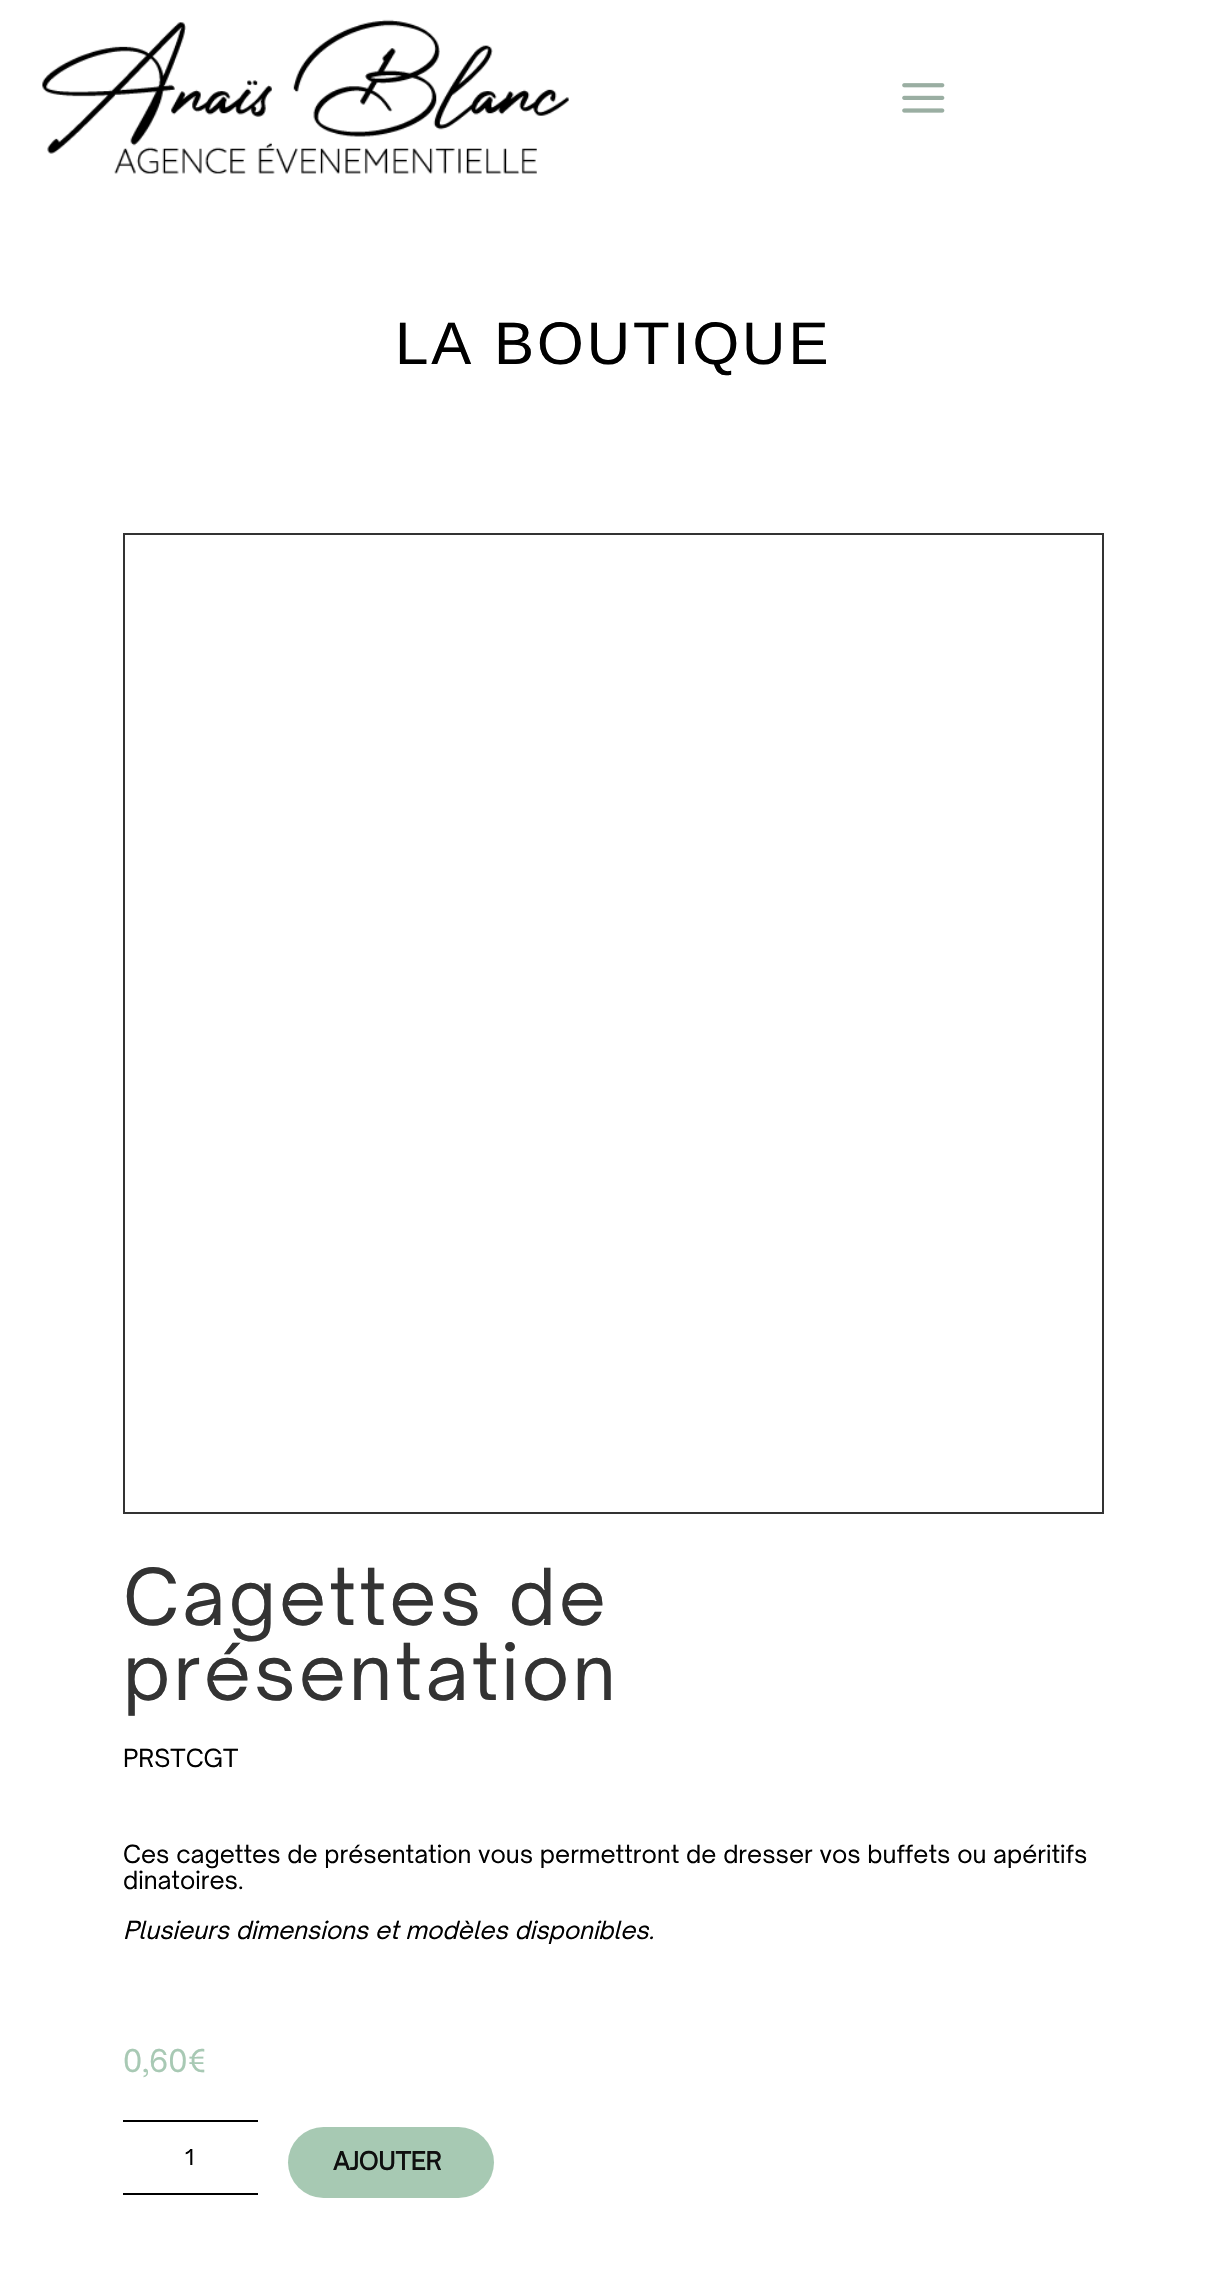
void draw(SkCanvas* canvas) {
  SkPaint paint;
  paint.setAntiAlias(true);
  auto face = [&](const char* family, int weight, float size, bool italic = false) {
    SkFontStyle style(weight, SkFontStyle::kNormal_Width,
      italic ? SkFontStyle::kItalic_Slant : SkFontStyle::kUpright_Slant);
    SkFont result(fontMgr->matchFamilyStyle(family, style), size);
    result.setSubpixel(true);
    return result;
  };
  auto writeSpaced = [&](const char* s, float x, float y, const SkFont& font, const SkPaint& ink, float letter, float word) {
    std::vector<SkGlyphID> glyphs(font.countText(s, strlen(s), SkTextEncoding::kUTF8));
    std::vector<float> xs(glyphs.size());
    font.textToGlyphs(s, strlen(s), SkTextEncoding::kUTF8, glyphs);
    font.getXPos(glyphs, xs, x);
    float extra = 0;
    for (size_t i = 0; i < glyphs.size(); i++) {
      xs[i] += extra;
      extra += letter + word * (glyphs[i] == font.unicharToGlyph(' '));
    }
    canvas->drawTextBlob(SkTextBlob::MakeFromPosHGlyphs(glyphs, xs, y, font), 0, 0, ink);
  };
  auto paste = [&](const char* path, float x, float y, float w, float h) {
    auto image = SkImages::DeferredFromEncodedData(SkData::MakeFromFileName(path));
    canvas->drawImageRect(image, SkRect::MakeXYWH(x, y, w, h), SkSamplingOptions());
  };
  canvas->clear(0xffffffff);
  paste("img/1.png", 42, 19, 527, 155);
  paste("img/2.png", 902, 83, 43, 30);
  paint.setStroke(true);
  paint.setStrokeWidth(2);
  paint.setColor(0xff333333);
  canvas->drawRect(SkRect::MakeXYWH(124, 534, 979, 979), paint);
  paint.setStroke(false);
  paint.setColor(0xff000000);
  canvas->drawRect(SkRect::MakeXYWH(123, 2120, 135, 2), paint);
  canvas->drawRect(SkRect::MakeXYWH(123, 2193, 135, 2), paint);
  paint.setColor(0xffa7c9b3);
  canvas->drawRoundRect(SkRect::MakeXYWH(288, 2127, 206, 71), 35.5f, 35.5f, paint);
  auto f0 = face("Liberation Sans", 400, 60);
  paint.setColor(0xff000000);
  writeSpaced("LA BOUTIQUE", 395, 364, f0, paint, 3, 0);
  auto f1 = face("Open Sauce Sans", 400, 75);
  paint.setColor(0xff333333);
  writeSpaced("Cagettes de", 123, 1625, f1, paint, 3, 0);
  writeSpaced("présentation", 123, 1700, f1, paint, 3, 0);
  auto f2 = face("Open Sauce Sans", 400, 24);
  paint.setColor(0xff000000);
  {
    const struct { const char* s; float x, y; } items[] = {
      {"PRSTCGT", 123, 1767},
      {"Ces cagettes de présentation vous permettront de dresser vos buffets ou apéritifs", 123, 1863},
      {"dinatoires.", 123, 1889},
    };
    for (auto [s, x, y] : items) {
      canvas->drawString(s, x, y, f2, paint);
    }
  }
  auto f3 = face("Open Sauce Sans", 400, 24, true);
  canvas->drawString("Plusieurs dimensions et modèles disponibles.", 123, 1939, f3, paint);
  auto f4 = face("Open Sauce Sans", 400, 30);
  paint.setColor(0xffa8c9b4);
  canvas->drawString("0,60€", 123, 2072, f4, paint);
  auto f5 = face("Open Sauce Sans", 400, 21);
  paint.setColor(0xff000000);
  canvas->drawString("1", 183, 2165, f5, paint);
  auto f6 = face("Open Sauce Sans", 700, 24);
  paint.setColor(0xff0f0f0f);
  canvas->drawString("AJOUTER", 333, 2170, f6, paint);
}
